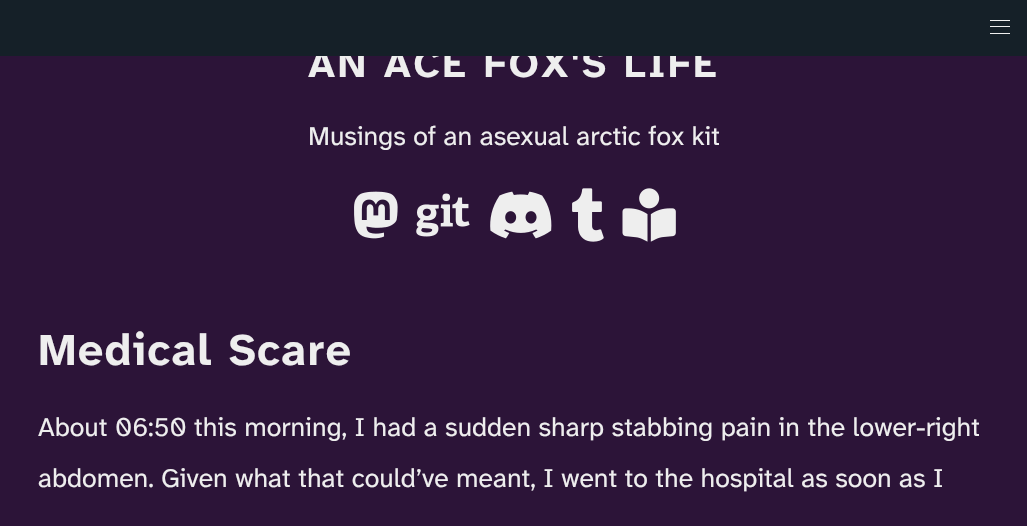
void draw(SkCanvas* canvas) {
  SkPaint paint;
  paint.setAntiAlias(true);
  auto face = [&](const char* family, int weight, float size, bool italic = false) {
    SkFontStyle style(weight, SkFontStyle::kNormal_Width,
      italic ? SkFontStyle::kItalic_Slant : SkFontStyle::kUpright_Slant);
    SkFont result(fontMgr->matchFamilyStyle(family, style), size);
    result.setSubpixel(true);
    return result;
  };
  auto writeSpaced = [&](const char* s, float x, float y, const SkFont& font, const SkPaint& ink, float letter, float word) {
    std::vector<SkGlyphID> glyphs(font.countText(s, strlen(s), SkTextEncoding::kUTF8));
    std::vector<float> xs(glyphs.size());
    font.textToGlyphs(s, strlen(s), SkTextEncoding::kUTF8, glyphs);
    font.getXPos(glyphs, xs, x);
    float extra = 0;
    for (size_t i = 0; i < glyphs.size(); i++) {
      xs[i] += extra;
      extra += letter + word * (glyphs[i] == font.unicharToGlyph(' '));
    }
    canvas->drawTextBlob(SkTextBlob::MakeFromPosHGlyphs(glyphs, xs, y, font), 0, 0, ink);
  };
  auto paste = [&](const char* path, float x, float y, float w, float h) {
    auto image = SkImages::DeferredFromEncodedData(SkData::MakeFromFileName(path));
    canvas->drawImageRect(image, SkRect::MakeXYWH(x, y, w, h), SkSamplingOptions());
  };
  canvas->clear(0xff2c1438);
  paste("img/1.png", 354, 191, 44, 48);
  paste("img/2.png", 416, 193, 54, 44);
  paste("img/3.png", 490, 191, 62, 48);
  paste("img/4.png", 572, 188, 32, 54);
  paste("img/5.png", 622, 188, 54, 54);
  auto f0 = face("Atkinson Hyperlegible Next", 700, 40);
  paint.setColor(0xffeeeeee);
  writeSpaced("AN ACE FOX'S LIFE", 308, 77, f0, paint, 2.5f, 0);
  auto f1 = face("Atkinson Hyperlegible Next", 400, 26.65f);
  canvas->drawString("Musings of an asexual arctic fox kit", 308, 145, f1, paint);
  {
    const struct { float x, y, w, h; SkColor color; } items[] = {
      {0, 0, 1027, 56, 0xff152028},
      {990, 20, 20, 1, 0xffeeeeee},
      {990, 26, 20, 1, 0xffeeeeee},
      {990, 33, 20, 1, 0xffeeeeee},
    };
    for (auto [x, y, w, h, color] : items) {
      paint.setColor(color);
      canvas->drawRect(SkRect::MakeXYWH(x, y, w, h), paint);
    }
  }
  auto f2 = face("Atkinson Hyperlegible Next", 700, 45);
  writeSpaced("Medical Scare", 38, 365, f2, paint, 1.25f, 0);
  canvas->drawString("About 06:50 this morning, I had a sudden sharp stabbing pain in the lower-right", 38, 436, f1, paint);
  canvas->drawString("abdomen. Given what that could’ve meant, I went to the hospital as soon as I", 38, 487, f1, paint);
}
